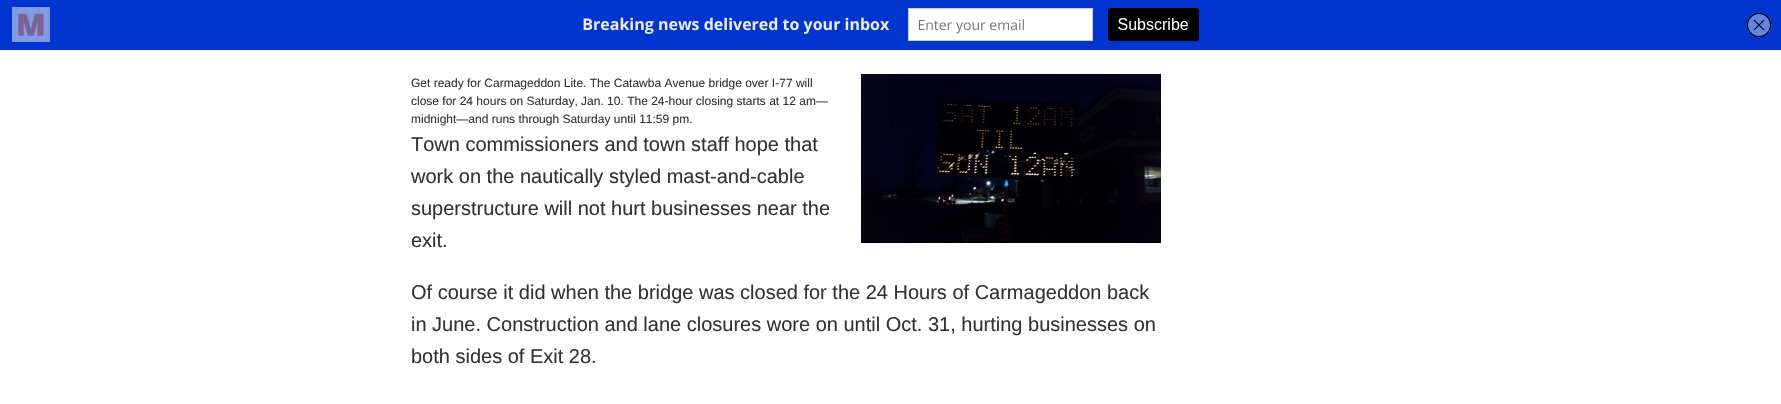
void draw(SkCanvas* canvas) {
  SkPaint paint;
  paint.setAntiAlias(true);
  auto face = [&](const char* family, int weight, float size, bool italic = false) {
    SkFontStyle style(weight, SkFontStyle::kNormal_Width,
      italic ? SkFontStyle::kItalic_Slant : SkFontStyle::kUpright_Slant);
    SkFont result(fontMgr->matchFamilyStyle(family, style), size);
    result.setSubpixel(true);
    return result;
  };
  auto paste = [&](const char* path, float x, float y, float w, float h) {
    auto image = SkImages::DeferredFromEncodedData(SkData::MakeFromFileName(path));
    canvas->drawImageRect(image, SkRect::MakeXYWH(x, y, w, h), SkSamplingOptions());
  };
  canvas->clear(0xffffffff);
  paste("img/1.png", 0, 0, 1781, 50);
  paste("img/2.png", 861, 74, 300, 169);
  auto f0 = face("Liberation Sans", 400, 12);
  paint.setColor(0xff333333);
  {
    const struct { const char* s; float x, y; } items[] = {
      {"Get ready for Carmageddon Lite. The Catawba Avenue bridge over I-77 will", 411, 87},
      {"close for 24 hours on Saturday, Jan. 10. The 24-hour closing starts at 12 am—", 411, 105},
      {"midnight—and runs through Saturday until 11:59 pm.", 411, 123},
    };
    for (auto [s, x, y] : items) {
      canvas->drawString(s, x, y, f0, paint);
    }
  }
  auto f1 = face("Liberation Sans", 400, 20);
  {
    const struct { const char* s; float x, y; } items[] = {
      {"Town commissioners and town staff hope that", 411, 151},
      {"work on the nautically styled mast-and-cable", 411, 183},
      {"superstructure will not hurt businesses near the", 411, 215},
      {"exit.", 411, 247},
      {"Of course it did when the bridge was closed for the 24 Hours of Carmageddon back", 411, 299},
      {"in June. Construction and lane closures wore on until Oct. 31, hurting businesses on", 411, 331},
      {"both sides of Exit 28.", 411, 363},
    };
    for (auto [s, x, y] : items) {
      canvas->drawString(s, x, y, f1, paint);
    }
  }
}
